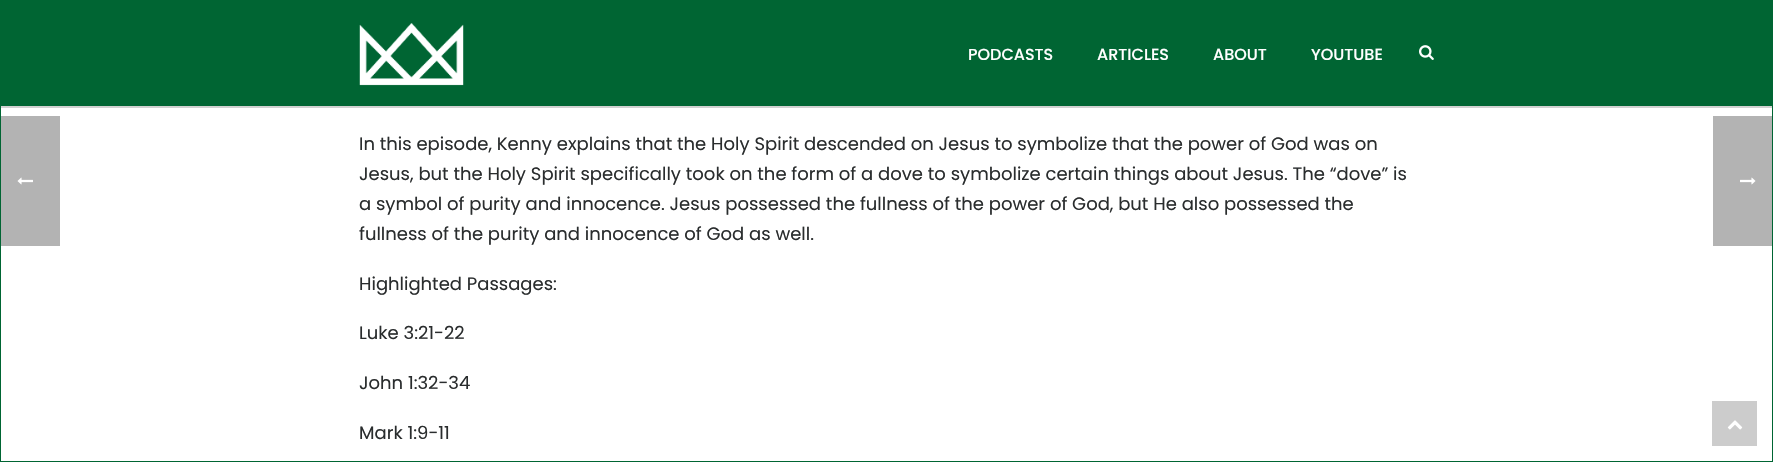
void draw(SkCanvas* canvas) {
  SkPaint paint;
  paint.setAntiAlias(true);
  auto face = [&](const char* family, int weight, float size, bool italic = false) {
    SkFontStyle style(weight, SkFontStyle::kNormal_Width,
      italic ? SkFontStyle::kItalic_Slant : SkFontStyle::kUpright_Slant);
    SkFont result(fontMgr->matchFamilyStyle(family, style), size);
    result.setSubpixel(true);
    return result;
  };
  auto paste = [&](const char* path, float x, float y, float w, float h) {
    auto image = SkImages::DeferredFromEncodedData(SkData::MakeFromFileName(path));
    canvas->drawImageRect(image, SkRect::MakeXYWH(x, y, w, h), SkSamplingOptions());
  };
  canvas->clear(0xffffffff);
  {
    const struct { float x, y, w, h; SkColor color; } items[] = {
      {0, 0, 1773, 1, 0xff006533},
      {0, 0, 1, 462, 0xff006533},
      {1, 116, 59, 130, 0xffb3b3b3},
    };
    for (auto [x, y, w, h, color] : items) {
      paint.setColor(color);
      canvas->drawRect(SkRect::MakeXYWH(x, y, w, h), paint);
    }
  }
  paste("img/1.png", 17, 177, 16, 8);
  paint.setColor(0xffd1d1d1);
  canvas->drawRect(SkRect::MakeXYWH(1, 106, 1771, 2), paint);
  paint.setColor(0xff006533);
  canvas->drawRect(SkRect::MakeXYWH(1, 1, 1771, 105), paint);
  paste("img/2.png", 359, 23, 105, 63);
  paste("img/3.png", 1419, 45, 15, 15);
  paint.setColor(0xffb3b3b3);
  canvas->drawRect(SkRect::MakeXYWH(1713, 116, 59, 130), paint);
  paste("img/4.png", 1740, 177, 16, 8);
  paint.setColor(0xff006533);
  canvas->drawRect(SkRect::MakeXYWH(1772, 0, 1, 462), paint);
  paint.setColor(0xffcccccc);
  canvas->drawRect(SkRect::MakeXYWH(1712, 401, 45, 45), paint);
  paste("img/5.png", 1727, 420, 16, 10);
  paint.setColor(0xff006533);
  canvas->drawRect(SkRect::MakeXYWH(0, 461, 1773, 1), paint);
  auto f0 = face("Poppins", 500, 16);
  paint.setColor(0xffffffff);
  {
    const struct { const char* s; float x, y; } items[] = {
      {"PODCASTS", 968, 60},
      {"ARTICLES", 1097, 60},
      {"ABOUT", 1213, 60},
      {"YOUTUBE", 1311, 60},
    };
    for (auto [s, x, y] : items) {
      canvas->drawString(s, x, y, f0, paint);
    }
  }
  auto f1 = face("Poppins", 400, 18);
  paint.setColor(0xff2a2d2e);
  {
    const struct { const char* s; float x, y; } items[] = {
      {"In this episode, Kenny explains that the Holy Spirit descended on Jesus to symbolize that the power of God was on", 359, 150},
      {"Jesus, but the Holy Spirit specifically took on the form of a dove to symbolize certain things about Jesus. The “dove” is", 359, 180},
      {"a symbol of purity and innocence. Jesus possessed the fullness of the power of God, but He also possessed the", 359, 210},
      {"fullness of the purity and innocence of God as well.", 359, 240},
      {"Highlighted Passages:", 359, 290},
      {"Luke 3:21-22", 359, 339},
      {"John 1:32-34", 359, 389},
      {"Mark 1:9-11", 359, 439},
    };
    for (auto [s, x, y] : items) {
      canvas->drawString(s, x, y, f1, paint);
    }
  }
}
